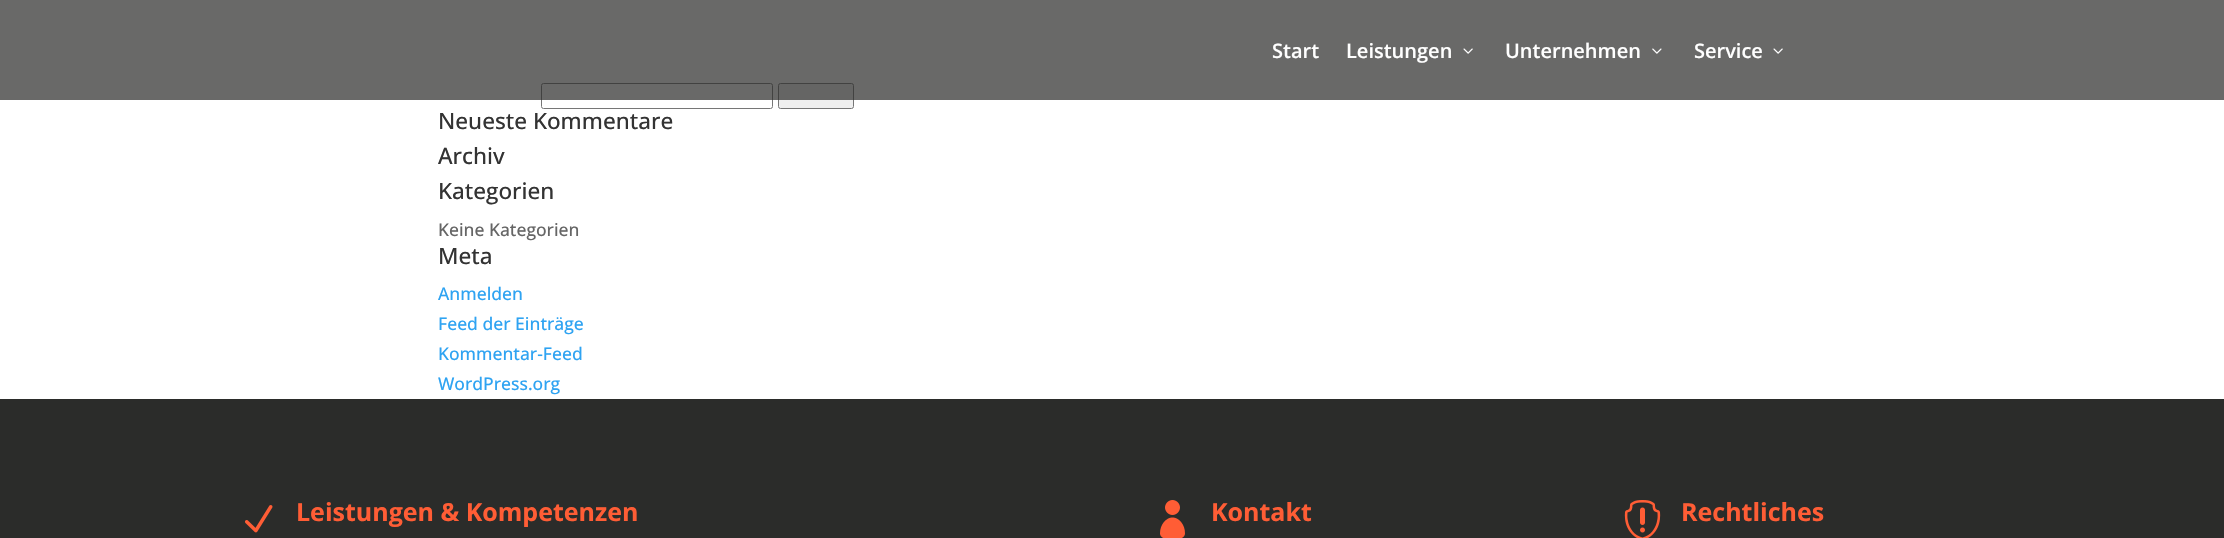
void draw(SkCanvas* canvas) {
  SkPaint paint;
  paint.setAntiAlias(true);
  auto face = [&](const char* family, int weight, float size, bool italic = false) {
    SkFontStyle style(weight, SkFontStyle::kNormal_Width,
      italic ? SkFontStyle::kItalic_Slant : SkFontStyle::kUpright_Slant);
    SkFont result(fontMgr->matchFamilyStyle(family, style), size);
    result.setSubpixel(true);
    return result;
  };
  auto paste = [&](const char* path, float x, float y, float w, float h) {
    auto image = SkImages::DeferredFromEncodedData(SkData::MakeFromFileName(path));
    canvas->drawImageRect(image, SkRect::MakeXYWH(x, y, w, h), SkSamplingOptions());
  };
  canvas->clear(0xffffffff);
  paint.setStroke(true);
  paint.setStrokeWidth(1);
  paint.setColor(0xff767676);
  canvas->drawRoundRect(SkRect::MakeXYWH(541.5f, 83.5f, 231, 25), 2, 2, paint);
  paint.setStroke(false);
  paint.setColor(0xffefefef);
  canvas->drawRoundRect(SkRect::MakeXYWH(778.5f, 83.5f, 75, 25), 2, 2, paint);
  paint.setStroke(true);
  paint.setColor(0xff767676);
  canvas->drawRoundRect(SkRect::MakeXYWH(778.5f, 83.5f, 75, 25), 2, 2, paint);
  paint.setStroke(false);
  paint.setColor(0xb52b2c2a);
  canvas->drawRect(SkRect::MakeXYWH(0, 0, 2224, 100), paint);
  paste("img/1.png", 1463, 48, 10, 6);
  paste("img/2.png", 1652, 48, 10, 6);
  paste("img/1.png", 1773, 48, 10, 6);
  paint.setColor(0xff2b2c2a);
  canvas->drawRect(SkRect::MakeXYWH(0, 399, 2224, 139), paint);
  paste("img/3.png", 245, 505, 28, 28);
  paste("img/4.png", 1160, 500, 25, 38);
  paste("img/5.png", 1624, 500, 37, 38);
  auto f0 = face("Open Sans", 600, 20);
  paint.setColor(0xffffffff);
  {
    const struct { const char* s; float x, y; } items[] = {
      {"Start", 1272, 58},
      {"Leistungen", 1346, 58},
      {"Unternehmen", 1505, 58},
      {"Service", 1694, 58},
    };
    for (auto [s, x, y] : items) {
      canvas->drawString(s, x, y, f0, paint);
    }
  }
  auto f1 = face("Open Sans", 500, 22.5f);
  paint.setColor(0xff333333);
  {
    const struct { const char* s; float x, y; } items[] = {
      {"Neueste Kommentare", 438, 129},
      {"Archiv", 438, 164},
      {"Kategorien", 438, 199},
    };
    for (auto [s, x, y] : items) {
      canvas->drawString(s, x, y, f1, paint);
    }
  }
  auto f2 = face("Open Sans", 500, 17.5f);
  paint.setColor(0xff666666);
  canvas->drawString("Keine Kategorien", 438, 236, f2, paint);
  paint.setColor(0xff333333);
  canvas->drawString("Meta", 438, 264, f1, paint);
  paint.setColor(0xff2ea3f2);
  {
    const struct { const char* s; float x, y; } items[] = {
      {"Anmelden", 438, 300},
      {"Feed der Einträge", 438, 330},
      {"Kommentar-Feed", 438, 360},
      {"WordPress.org", 438, 390},
    };
    for (auto [s, x, y] : items) {
      canvas->drawString(s, x, y, f2, paint);
    }
  }
  auto f3 = face("Open Sans", 700, 25);
  paint.setColor(0xffff5d35);
  {
    const struct { const char* s; float x, y; } items[] = {
      {"Leistungen & Kompetenzen", 296, 521},
      {"Kontakt", 1211, 521},
      {"Rechtliches", 1681, 521},
    };
    for (auto [s, x, y] : items) {
      canvas->drawString(s, x, y, f3, paint);
    }
  }
}
